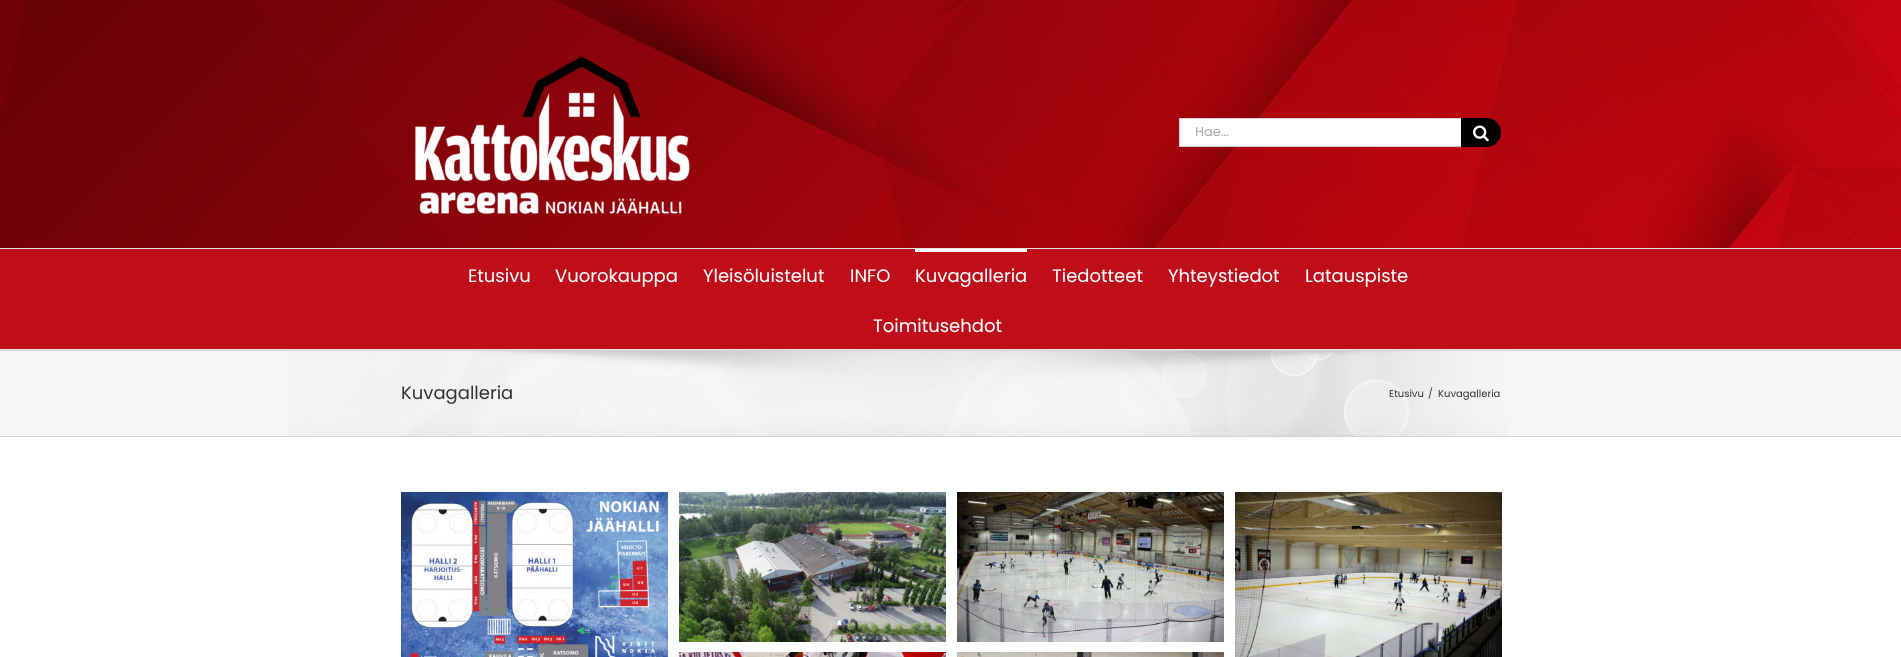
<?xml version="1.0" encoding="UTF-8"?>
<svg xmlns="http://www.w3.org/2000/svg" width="1901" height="657">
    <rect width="100%" height="100%" fill="#FFFFFF"/>
    <image x="0" y="0" width="1901" height="248" href="img_01.png"/>
    <rect x="0" y="248" width="1901" height="1" fill="#E5E5E5"/>
    <image x="415" y="56" width="275" height="158" href="img_02.png"/>
    <rect x="1180" y="119" width="281" height="27" fill="#FFFFFF"/>
    <rect x="1179" y="118" width="282" height="1" fill="#D2D2D2"/>
    <rect x="1179" y="146" width="282" height="1" fill="#D2D2D2"/>
    <rect x="1179" y="118" width="1" height="29" fill="#D2D2D2"/>
    <text x="1195" y="136" font-family="Poppins" font-size="13" fill="#AAA9A9">Hae...</text>
    <path d="M 1461 118 H 1486.5 C 1494.5 118 1501 124.5 1501 132.5 C 1501 140.5 1494.5 147 1486.5 147 H 1461 Z" fill="#000000"/>
    <image x="1473" y="125" width="16" height="17" href="img_03.png"/>
    <rect x="0" y="249" width="1901" height="100" fill="#BF0E1A"/>
    <rect x="0" y="349" width="1901" height="1" fill="#E5E5E5"/>
    <text x="468" y="282" font-family="Poppins" font-size="18" fill="#FFFFFF">Etusivu</text>
    <text x="555" y="282" font-family="Poppins" font-size="18" fill="#FFFFFF">Vuorokauppa</text>
    <text x="703" y="282" font-family="Poppins" font-size="18" fill="#FFFFFF">Yleisöluistelut</text>
    <text x="850" y="282" font-family="Poppins" font-size="18" fill="#FFFFFF">INFO</text>
    <rect x="915" y="249" width="112" height="3" fill="#FFFFFF"/>
    <text x="915" y="282" font-family="Poppins" font-size="18" fill="#FFFFFF">Kuvagalleria</text>
    <text x="1052" y="282" font-family="Poppins" font-size="18" fill="#FFFFFF">Tiedotteet</text>
    <text x="1168" y="282" font-family="Poppins" font-size="18" fill="#FFFFFF">Yhteystiedot</text>
    <text x="1305" y="282" font-family="Poppins" font-size="18" fill="#FFFFFF">Latauspiste</text>
    <text x="873" y="332" font-family="Poppins" font-size="18" fill="#FFFFFF">Toimitusehdot</text>
    <rect x="0" y="351" width="1901" height="85" fill="#F6F6F6"/>
    <image x="287" y="351" width="1222" height="85" href="img_04.png"/>
    <rect x="0" y="350" width="1901" height="1" fill="#D2D3D4"/>
    <rect x="0" y="436" width="1901" height="1" fill="#D2D3D4"/>
    <text x="401" y="399" font-family="Poppins" font-size="18" fill="#333333">Kuvagalleria</text>
    <text x="1389" y="397" font-family="Poppins" font-size="10" fill="#333333">Etusivu</text>
    <text x="1428" y="397" font-family="Poppins" font-size="10" fill="#333333">/</text>
    <text x="1438" y="397" font-family="Poppins" font-size="10" fill="#333333">Kuvagalleria</text>
    <image x="401" y="492" width="267" height="165" href="img_05.png"/>
    <image x="679" y="492" width="267" height="150" href="img_06.png"/>
    <image x="957" y="492" width="267" height="150" href="img_07.png"/>
    <image x="1235" y="492" width="267" height="165" href="img_08.png"/>
    <image x="679" y="652" width="267" height="5" href="img_09.png"/>
    <image x="957" y="652" width="267" height="5" href="img_10.png"/>
</svg>
